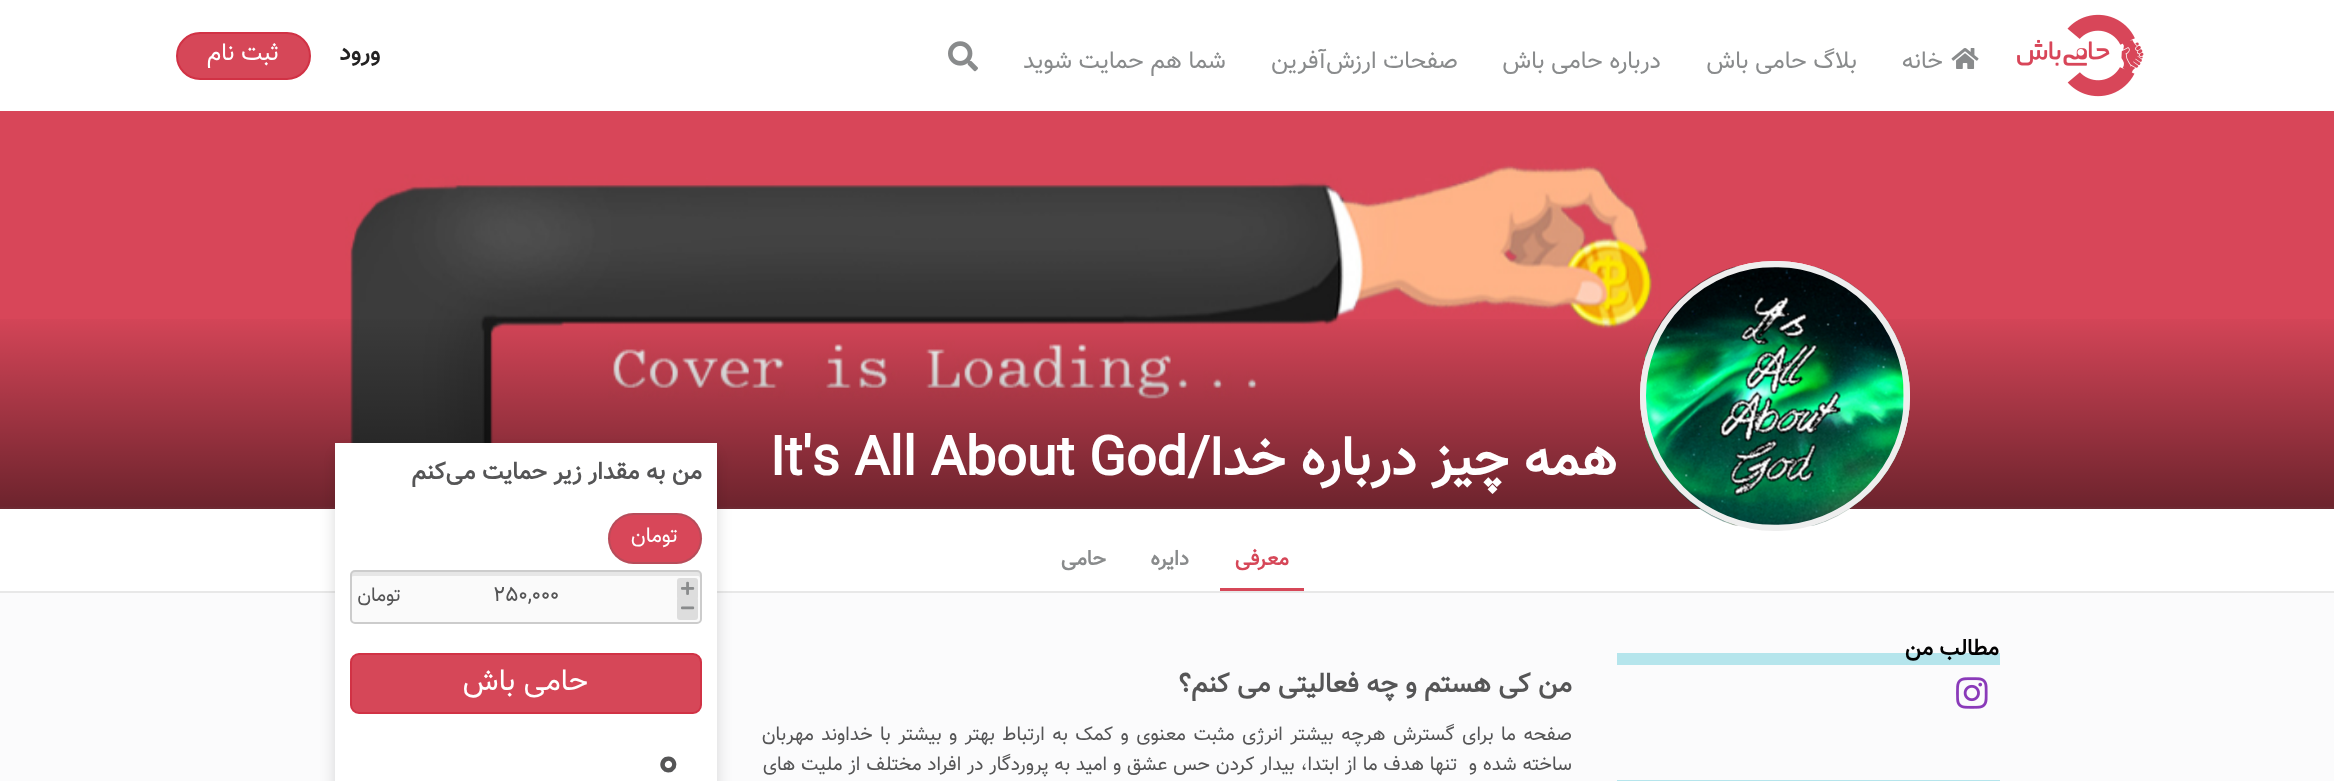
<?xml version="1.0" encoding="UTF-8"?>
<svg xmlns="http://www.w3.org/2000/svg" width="2334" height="781">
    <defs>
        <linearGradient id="g1" gradientUnits="userSpaceOnUse" x1="1167" y1="111" x2="1167" y2="509"><stop offset="0.5" stop-color="#000000" stop-opacity="0"/><stop offset="1" stop-color="#000000" stop-opacity="0.5"/></linearGradient>
        <clipPath id="clip1"><path d="M 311 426 H 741 V 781 H 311 Z M 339 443 H 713 C 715 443 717 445 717 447 V 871 C 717 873 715 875 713 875 H 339 C 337 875 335 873 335 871 V 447 C 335 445 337 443 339 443 Z" clip-rule="evenodd"/></clipPath>
        <filter id="blur1" x="-50%" y="-200%" width="200%" height="500%"><feGaussianBlur stdDeviation="7.5"/></filter>
    </defs>
    <rect width="100%" height="100%" fill="#FFFFFF"/>
    <image x="2017" y="14" width="127" height="83" href="img_01.png"/>
    <image x="1951" y="48" width="28" height="21" href="img_02.png"/>
    <text x="1943" y="68" font-family="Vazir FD" font-size="24" direction="rtl" fill="#898B8C">خانه</text>
    <text x="1857" y="68" font-family="Vazir FD" font-size="24" direction="rtl" fill="#898B8C">بلاگ حامی باش</text>
    <text x="1661" y="68" font-family="Vazir FD" font-size="24" direction="rtl" fill="#898B8C">درباره حامی باش</text>
    <text x="1458" y="68" font-family="Vazir FD" font-size="24" direction="rtl" fill="#898B8C">صفحات ارزش‌آفرین</text>
    <text x="1226" y="68" font-family="Vazir FD" font-size="24" direction="rtl" fill="#898B8C">شما هم حمایت شوید</text>
    <image x="948" y="41" width="30" height="31" href="img_03.png"/>
    <text x="380" y="60" font-family="Vazir FD" font-size="24" font-weight="700" direction="rtl" fill="#232222">ورود</text>
    <rect x="177" y="33" width="133" height="46" rx="23" fill="#D64758" stroke="#D13245" stroke-width="2"/>
    <text x="279" y="60" font-family="Vazir FD" font-size="24" direction="rtl" fill="#FFFFFF">ثبت نام</text>
    <rect x="0" y="506" width="2334" height="275" fill="#FBFBFC"/>
    <image x="0" y="111" width="2334" height="398" href="img_04.png"/>
    <rect x="0" y="319" width="2334" height="190" fill="url(#g1)"/>
    <rect x="0" y="509" width="2334" height="82" fill="#FFFFFF"/>
    <circle cx="1775" cy="396" r="135" fill="#FFFFFF"/>
    <image x="1645" y="266" width="259" height="260" href="img_05.png"/>
    <circle cx="1775" cy="396" r="132" fill="none" stroke="#EEEEEE" stroke-width="6"/>
    <text x="1617" y="475" font-family="Vazir FD" font-size="54" font-weight="700" direction="rtl" fill="#FFFFFF">همه چیز درباره خدا/</text>
    <text x="770" y="475" font-family="Vazir FD" font-size="54" font-weight="700" fill="#FFFFFF">It's All About God</text>
    <rect x="1617" y="653" width="383" height="12" fill="#B5E5EC"/>
    <text x="1999" y="655" font-family="Vazir FD" font-size="22.5" font-weight="700" direction="rtl" fill="#010101">مطالب من</text>
    <image x="1956" y="677" width="32" height="32" href="img_06.png"/>
    <rect x="1617" y="780" width="383" height="1" fill="#B5E5EC"/>
    <text x="1572" y="692" font-family="Vazir FD" font-size="27" font-weight="700" direction="rtl" fill="#555556">من کی هستم و چه فعاليتی می کنم؟</text>
    <text font-family="Vazir FD" font-size="19.5" direction="rtl" fill="#555556" xml:space="preserve"><tspan x="1572" y="740" word-spacing="2.1">صفحه ما برای گسترش هرچه بیشتر انرژی مثبت معنوی و کمک به ارتباط بهتر و بیشتر با خداوند مهربان</tspan><tspan x="1572" y="770" word-spacing="0.4">ساخته شده و  تنها هدف ما از ابتدا، بیدار کردن حس عشق و امید به پروردگار در افراد مختلف از ملیت های</tspan></text>
    <rect x="0" y="591" width="2334" height="2" fill="#E8E8E8"/>
    <rect x="335" y="443" width="382" height="338" fill="#FFFFFF"/>
    <g clip-path="url(#clip1)">
        <rect x="335" y="450" width="382" height="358" rx="4" fill="#000000" fill-opacity="0.15" filter="url(#blur1)"/>
    </g>
    <text x="702" y="479" font-family="Vazir FD" font-size="24" font-weight="700" direction="rtl" fill="#555556">من به مقدار زیر حمایت می‌کنم</text>
    <rect x="608" y="513" width="94" height="51" rx="25.5" fill="#D84759"/>
    <rect x="609" y="514" width="92" height="49" rx="24.5" fill="none" stroke="#5B5B5B" stroke-opacity="0.26" stroke-width="2"/>
    <text x="678" y="542" font-family="Vazir FD" font-size="21" direction="rtl" fill="#FFFFFF">تومان</text>
    <rect x="351" y="572" width="350" height="51" rx="3" fill="#FAFAFA"/>
    <path d="M 354 576 H 698 C 699 576 700 577 700 579 V 622 C 701 622 701 621 701 620 V 575 C 701 573 700 572 698 572 H 354 C 352 572 351 573 351 575 V 579 C 351 577 352 576 354 576 Z" fill="#E6E6E6"/>
    <rect x="351" y="571" width="350" height="52" rx="4" fill="none" stroke="#CCCCCC" stroke-width="2"/>
    <rect x="677" y="578" width="21" height="22" rx="3" fill="#DDDDDD"/>
    <image x="681" y="581" width="14" height="14" href="img_07.png"/>
    <text x="493" y="601" font-family="Vazir FD" font-size="21" fill="#555556">250,000</text>
    <rect x="677" y="597" width="21" height="23" rx="3" fill="#DDDDDD"/>
    <image x="681" y="606" width="14" height="4" href="img_08.png"/>
    <text x="401" y="601" font-family="Vazir FD" font-size="19.5" direction="rtl" fill="#555556">تومان</text>
    <rect x="351" y="654" width="350" height="59" rx="8" fill="#D64758" stroke="#D13245" stroke-width="2"/>
    <text x="588" y="690" font-family="Vazir FD" font-size="30" direction="rtl" fill="#FFFFFF">حامی باش</text>
    <text x="657" y="778" font-family="Vazir FD" font-size="52" fill="#555556">0</text>
    <rect x="1220" y="588" width="84" height="3" fill="#D64758"/>
    <text x="1289" y="565" font-family="Vazir FD" font-size="21" font-weight="700" direction="rtl" fill="#D64758">معرفی</text>
    <text x="1189" y="565" font-family="Vazir FD" font-size="21" font-weight="700" direction="rtl" fill="#898B8C">دایره</text>
    <text x="1106" y="565" font-family="Vazir FD" font-size="21" font-weight="700" direction="rtl" fill="#898B8C">حامی</text>
</svg>
